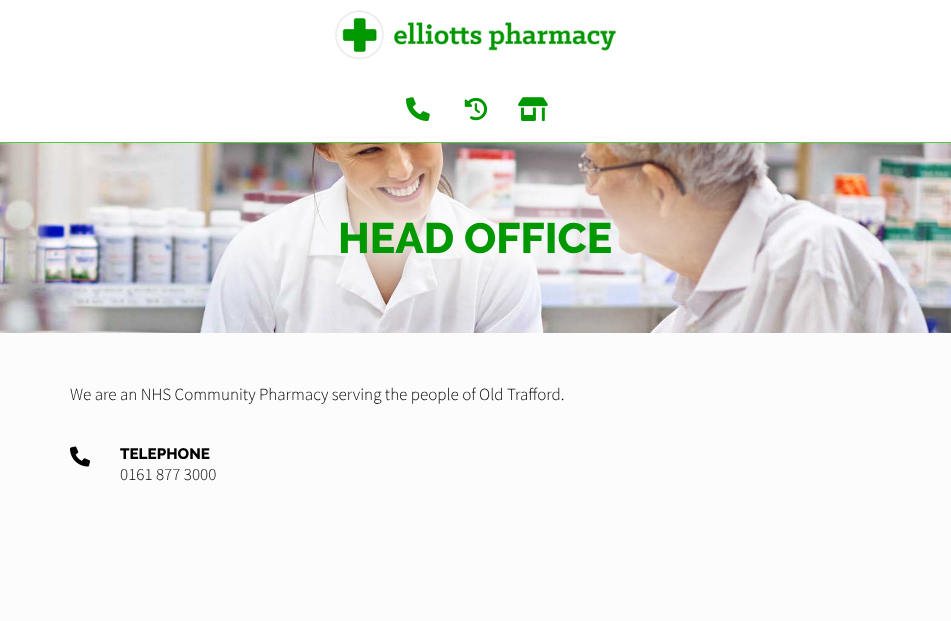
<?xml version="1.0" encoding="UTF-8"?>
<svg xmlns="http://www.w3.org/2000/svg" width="951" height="621">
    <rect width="100%" height="100%" fill="#FCFCFC"/>
    <rect x="0" y="0" width="951" height="142" fill="#FFFFFF"/>
    <rect x="0" y="142" width="951" height="1" fill="#53CA40"/>
    <image x="335" y="10" width="282" height="50" href="img_01.png"/>
    <image x="406" y="97" width="24" height="24" href="img_02.png"/>
    <image x="464" y="97" width="24" height="24" href="img_03.png"/>
    <image x="518" y="97" width="30" height="24" href="img_04.png"/>
    <image x="0" y="143" width="951" height="190" href="img_05.png"/>
    <text x="338" y="253" font-family="Raleway" font-size="42.5" font-weight="800" fill="#009800">HEAD OFFICE</text>
    <text x="70" y="400" font-family="Source Sans Pro" font-size="17" font-weight="300" fill="#000000">We are an NHS Community Pharmacy serving the people of Old Trafford.</text>
    <image x="70" y="446" width="20" height="21" href="img_06.png"/>
    <text x="120" y="459" font-family="Raleway" font-size="15.25" font-weight="800" fill="#000000">TELEPHONE</text>
    <text x="120" y="480" font-family="Source Sans Pro" font-size="17" font-weight="300" fill="#000000">0161 877 3000</text>
</svg>
